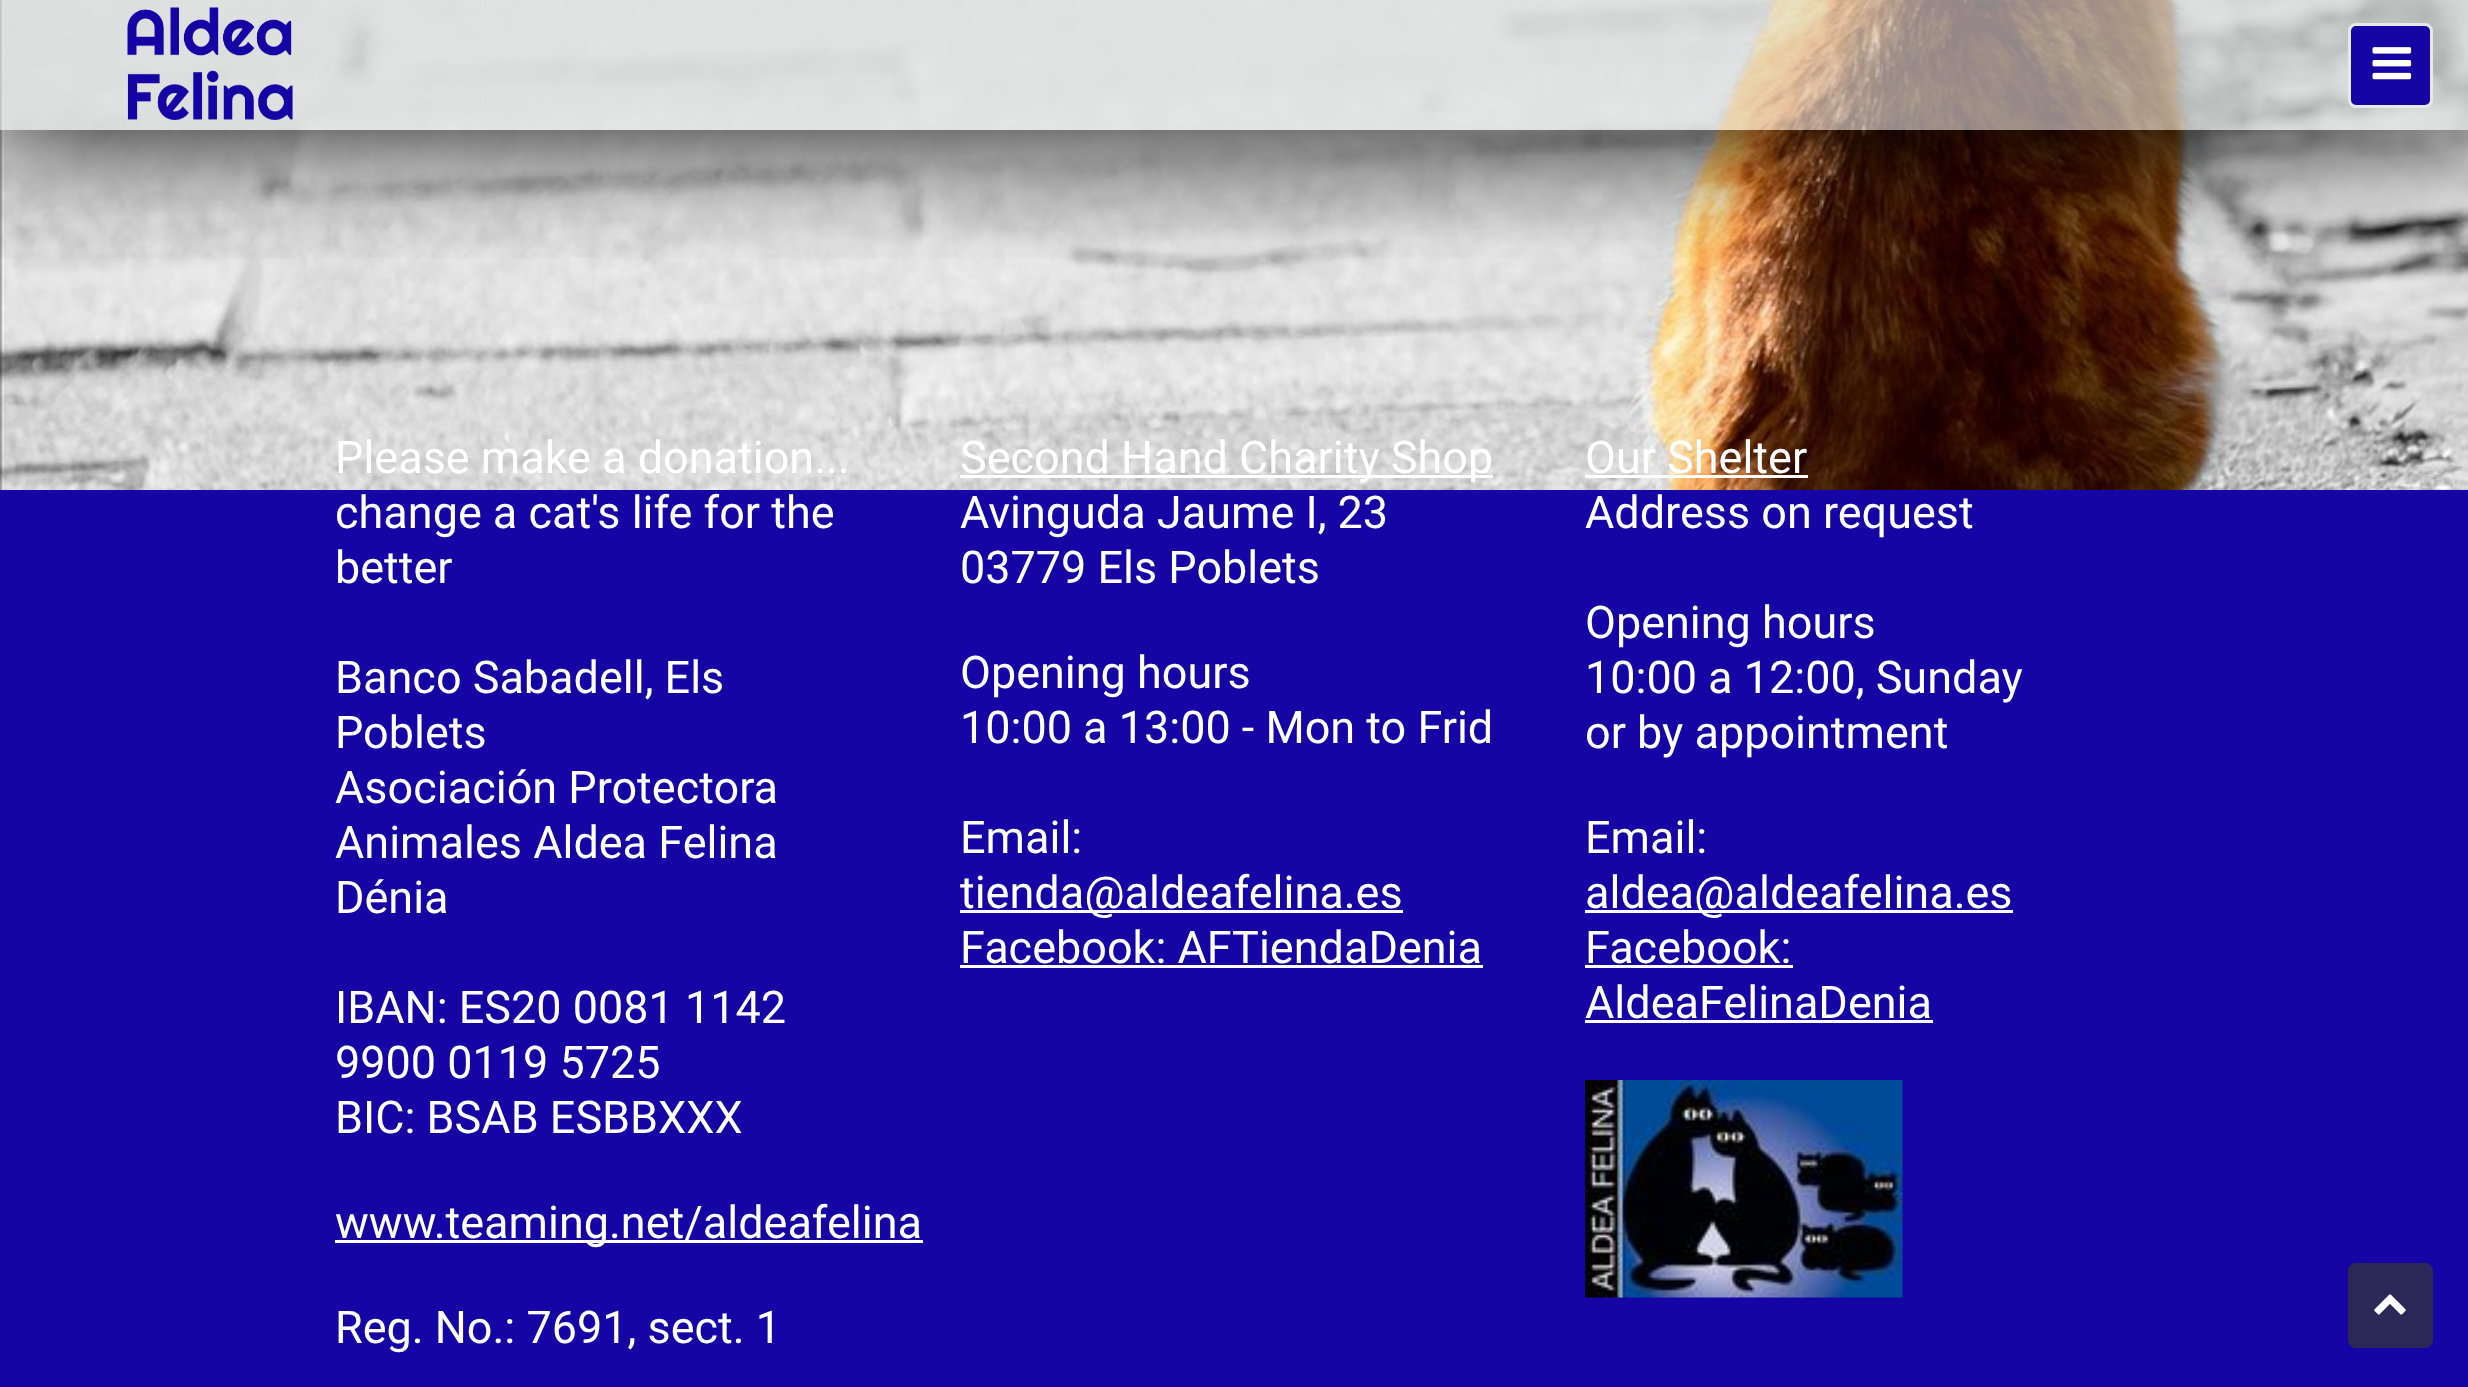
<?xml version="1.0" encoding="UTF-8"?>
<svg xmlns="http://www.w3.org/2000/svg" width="2468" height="1387">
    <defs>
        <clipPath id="clip1"><rect x="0" y="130" width="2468" height="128"/></clipPath>
        <filter id="blur1" x="-50%" y="-200%" width="200%" height="500%"><feGaussianBlur stdDeviation="62.5"/></filter>
    </defs>
    <rect width="100%" height="100%" fill="#1505A5"/>
    <image x="0" y="0" width="2468" height="490" href="img_01.png"/>
    <g clip-path="url(#clip1)">
        <rect x="0" y="0" width="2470" height="130" fill="#000000" filter="url(#blur1)"/>
    </g>
    <rect x="0" y="0" width="2468" height="130" fill="#DDE1E1" fill-opacity="0.6"/>
    <image x="127" y="7" width="166" height="113" href="img_02.png"/>
    <rect x="2349.5" y="24.5" width="82" height="82" rx="6.5" fill="#1505A5" stroke="#E8E8E8" stroke-width="3"/>
    <image x="2372" y="47" width="40" height="33" href="img_03.png"/>
    <text font-family="Roboto" font-size="45" fill="#FFFFFF">
        <tspan x="335" y="473">Please make a donation...</tspan>
        <tspan x="335" y="528">change a cat's life for the</tspan>
        <tspan x="335" y="583">better</tspan>
    </text>
    <text font-family="Roboto" font-size="45" fill="#FFFFFF">
        <tspan x="335" y="693">Banco Sabadell, Els</tspan>
        <tspan x="335" y="748">Poblets</tspan>
        <tspan x="335" y="803">Asociación Protectora</tspan>
        <tspan x="335" y="858">Animales Aldea Felina</tspan>
        <tspan x="335" y="913">Dénia</tspan>
    </text>
    <text font-family="Roboto" font-size="45" fill="#FFFFFF">
        <tspan x="335" y="1023">IBAN: ES20 0081 1142</tspan>
        <tspan x="335" y="1078">9900 0119 5725</tspan>
        <tspan x="335" y="1133">BIC: BSAB ESBBXXX</tspan>
    </text>
    <rect x="335" y="1240" width="588" height="3" fill="#FFFFFF"/>
    <text x="335" y="1238" font-family="Roboto" font-size="45" fill="#FFFFFF">www.teaming.net/aldeafelina</text>
    <text x="335" y="1343" font-family="Roboto" font-size="45" fill="#FFFFFF">Reg. No.: 7691, sect. 1</text>
    <rect x="960" y="475" width="533" height="3" fill="#FFFFFF"/>
    <text font-family="Roboto" font-size="45" fill="#FFFFFF">
        <tspan x="960" y="473">Second Hand Charity Shop</tspan>
        <tspan x="960" y="528">Avinguda Jaume I, 23</tspan>
        <tspan x="960" y="583">03779 Els Poblets</tspan>
    </text>
    <text font-family="Roboto" font-size="45" fill="#FFFFFF">
        <tspan x="960" y="688">Opening hours</tspan>
        <tspan x="960" y="743">10:00 a 13:00 - Mon to Frid</tspan>
    </text>
    <text x="960" y="853" font-family="Roboto" font-size="45" fill="#FFFFFF">Email:</text>
    <rect x="960" y="910" width="443" height="3" fill="#FFFFFF"/>
    <text font-family="Roboto" font-size="45" fill="#FFFFFF">
        <tspan x="960" y="908">tienda@aldeafelina.es</tspan>
        <tspan x="960" y="963">Facebook: AFTiendaDenia</tspan>
    </text>
    <rect x="960" y="965" width="523" height="3" fill="#FFFFFF"/>
    <text x="1585" y="473" font-family="Roboto" font-size="45" fill="#FFFFFF">Our Shelter</text>
    <rect x="1585" y="475" width="223" height="3" fill="#FFFFFF"/>
    <text x="1585" y="528" font-family="Roboto" font-size="45" fill="#FFFFFF">Address on request</text>
    <text font-family="Roboto" font-size="45" fill="#FFFFFF">
        <tspan x="1585" y="638">Opening hours</tspan>
        <tspan x="1585" y="693">10:00 a 12:00, Sunday</tspan>
        <tspan x="1585" y="748">or by appointment</tspan>
    </text>
    <text x="1585" y="853" font-family="Roboto" font-size="45" fill="#FFFFFF">Email:</text>
    <rect x="1585" y="910" width="428" height="3" fill="#FFFFFF"/>
    <text font-family="Roboto" font-size="45" fill="#FFFFFF">
        <tspan x="1585" y="908">aldea@aldeafelina.es</tspan>
        <tspan x="1585" y="963">Facebook:</tspan>
    </text>
    <rect x="1585" y="965" width="208" height="3" fill="#FFFFFF"/>
    <text x="1585" y="1018" font-family="Roboto" font-size="45" fill="#FFFFFF">AldeaFelinaDenia</text>
    <rect x="1585" y="1020" width="348" height="3" fill="#FFFFFF"/>
    <image x="1585" y="1080" width="318" height="218" href="img_04.png"/>
    <rect x="2348" y="1263" width="85" height="85" rx="8" fill="#2B2757"/>
    <image x="2374" y="1294" width="32" height="21" href="img_05.png"/>
</svg>
